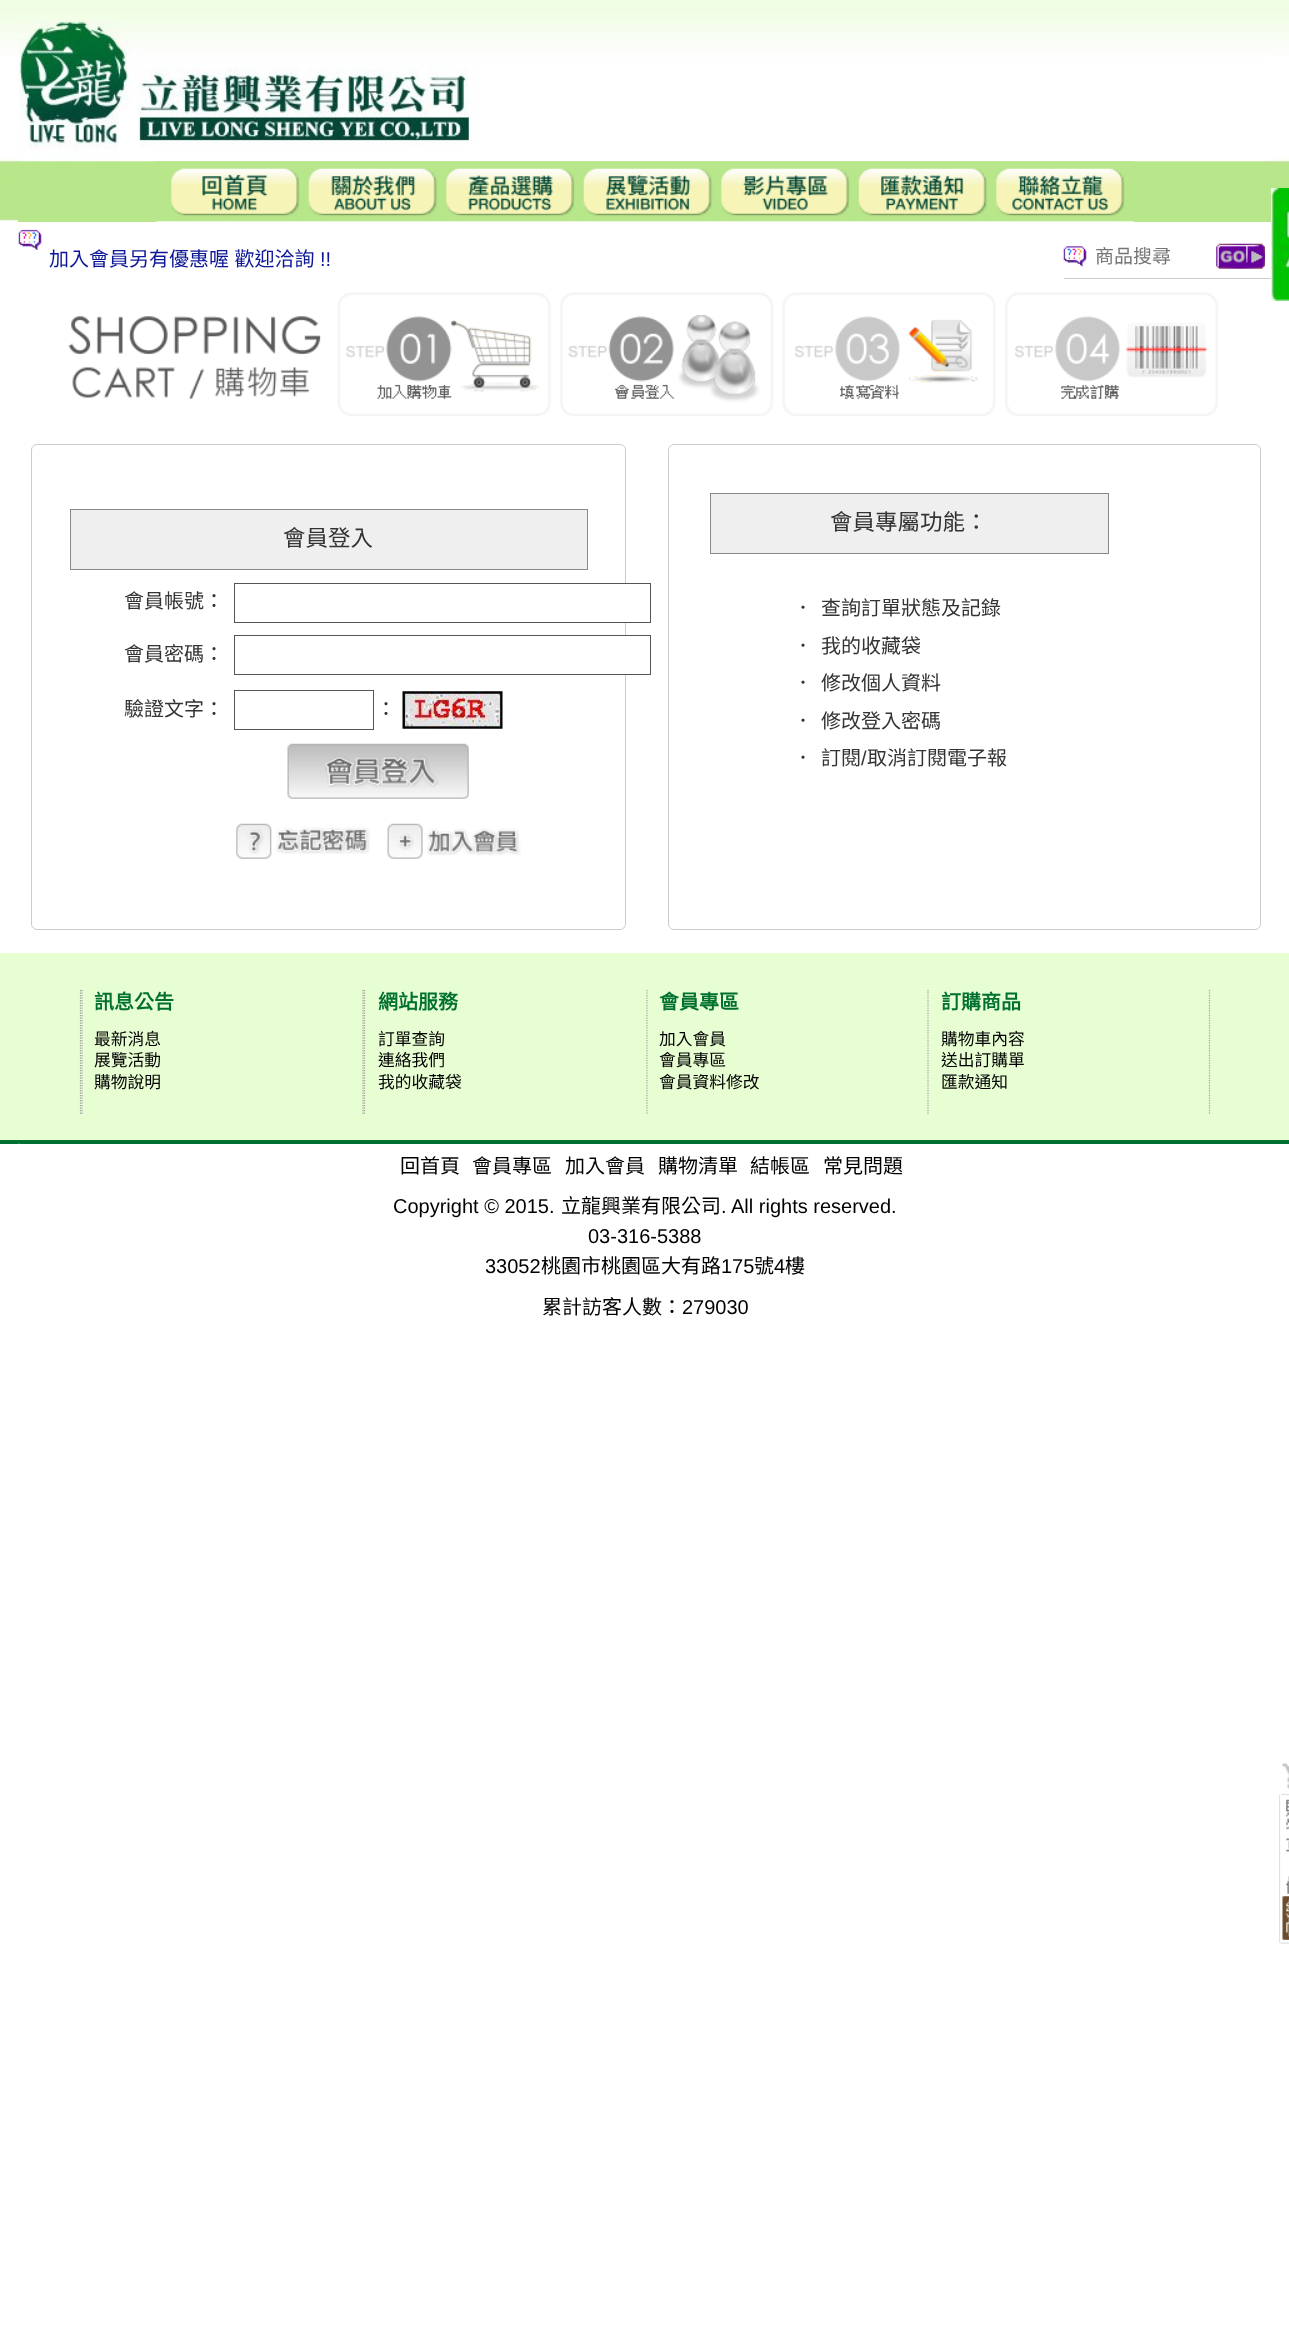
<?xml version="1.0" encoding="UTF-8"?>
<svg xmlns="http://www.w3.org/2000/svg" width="1289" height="2331">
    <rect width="100%" height="100%" fill="#FFFFFF"/>
    <image x="0" y="0" width="1289" height="222" href="img_01.png"/>
    <rect x="18" y="161" width="1254" height="61" fill="#B8E68B"/>
    <image x="18" y="20" width="1254" height="142" href="img_02.png"/>
    <image x="156" y="161" width="148" height="61" href="img_03.png"/>
    <image x="303" y="161" width="139" height="61" href="img_04.png"/>
    <image x="441" y="161" width="138" height="61" href="img_05.png"/>
    <image x="578" y="161" width="139" height="61" href="img_06.png"/>
    <image x="716" y="161" width="138" height="61" href="img_07.png"/>
    <image x="853" y="161" width="139" height="61" href="img_08.png"/>
    <image x="991" y="161" width="143" height="61" href="img_09.png"/>
    <image x="18" y="229" width="24" height="21" href="img_10.png"/>
    <text x="49" y="266" word-spacing="1" font-family="Noto Sans CJK TC" font-size="20" fill="#0D1796">加入會員另有優惠喔 歡迎洽詢</text>
    <text x="320" y="266" font-family="Liberation Sans" font-size="20" fill="#0D1796">!!</text>
    <rect x="1064" y="278" width="207" height="1" fill="#CCCCCC"/>
    <image x="1063" y="246" width="24" height="21" href="img_11.png"/>
    <text x="1095" y="263" font-family="Noto Sans CJK TC" font-size="19" fill="#757575">商品搜尋</text>
    <image x="1216" y="243" width="49" height="26" href="img_12.png"/>
    <image x="68" y="292" width="1151" height="124" href="img_13.png"/>
    <rect x="31.5" y="444.5" width="594" height="485" rx="5.5" fill="none" stroke="#CCCCCC"/>
    <rect x="70.5" y="509.5" width="517" height="60" fill="#EFEFEF" stroke="#888888"/>
    <text x="283" y="546" font-family="Noto Sans CJK TC" font-size="22.5" fill="#333333">會員登入</text>
    <text x="124" y="608" font-family="Noto Sans CJK TC" font-size="20" fill="#333333">會員帳號：</text>
    <rect x="625" y="584" width="1" height="38" fill="#FFFFFF"/>
    <rect x="234.5" y="583.5" width="416" height="39" fill="none" stroke="#555555"/>
    <text x="124" y="661" font-family="Noto Sans CJK TC" font-size="20" fill="#333333">會員密碼：</text>
    <rect x="625" y="636" width="1" height="38" fill="#FFFFFF"/>
    <rect x="234.5" y="635.5" width="416" height="39" fill="none" stroke="#555555"/>
    <text x="124" y="716" font-family="Noto Sans CJK TC" font-size="20" fill="#333333">驗證文字：</text>
    <rect x="234.5" y="690.5" width="139" height="39" fill="none" stroke="#555555"/>
    <text x="376" y="716" font-family="Noto Sans CJK TC" font-size="20" fill="#333333">：</text>
    <image x="402" y="691" width="101" height="38" href="img_14.png"/>
    <image x="287" y="743" width="182" height="56" href="img_15.png"/>
    <image x="236" y="823" width="134" height="36" href="img_16.png"/>
    <image x="387" y="823" width="134" height="36" href="img_17.png"/>
    <rect x="668.5" y="444.5" width="592" height="485" rx="5.5" fill="none" stroke="#CCCCCC"/>
    <rect x="710.5" y="493.5" width="398" height="60" fill="#EFEFEF" stroke="#888888"/>
    <text x="830" y="530" font-family="Noto Sans CJK TC" font-size="22.5" fill="#333333">會員專屬功能：</text>
    <text x="793" y="615" font-family="Noto Sans CJK TC" font-size="20" fill="#333333">．</text>
    <text x="821" y="615" font-family="Noto Sans CJK TC" font-size="20" fill="#333333">查詢訂單狀態及記錄</text>
    <text x="793" y="653" font-family="Noto Sans CJK TC" font-size="20" fill="#333333">．</text>
    <text x="821" y="653" font-family="Noto Sans CJK TC" font-size="20" fill="#333333">我的收藏袋</text>
    <text x="793" y="690" font-family="Noto Sans CJK TC" font-size="20" fill="#333333">．</text>
    <text x="821" y="690" font-family="Noto Sans CJK TC" font-size="20" fill="#333333">修改個人資料</text>
    <text x="793" y="728" font-family="Noto Sans CJK TC" font-size="20" fill="#333333">．</text>
    <text x="821" y="728" font-family="Noto Sans CJK TC" font-size="20" fill="#333333">修改登入密碼</text>
    <text x="793" y="765" font-family="Noto Sans CJK TC" font-size="20" fill="#333333">．</text>
    <text x="821" y="765" font-family="Noto Sans CJK TC" font-size="20" fill="#333333">訂閱</text>
    <text x="861" y="765" font-family="Liberation Sans" font-size="20" fill="#333333">/</text>
    <text x="867" y="765" font-family="Noto Sans CJK TC" font-size="20" fill="#333333">取消訂閱電子報</text>
    <rect x="0" y="953" width="1289" height="187" fill="#E7FED2"/>
    <path d="M 82 990 V 1115" fill="none" stroke="#A1A1A1" stroke-width="1.2" stroke-dasharray="1.25 1.25"/>
    <path d="M 80.5 990 V 1115" fill="none" stroke="#A1A1A1" stroke-width="1.2" stroke-dasharray="1.25 1.25"/>
    <text x="94" y="1009" font-family="Noto Sans CJK TC" font-size="20" font-weight="700" fill="#007030">訊息公告</text>
    <text font-family="Noto Sans CJK TC" font-size="16.75" fill="#000000">
        <tspan x="94" y="1045">最新消息</tspan>
        <tspan x="94" y="1066">展覽活動</tspan>
        <tspan x="94" y="1088">購物說明</tspan>
    </text>
    <path d="M 364.5 990 V 1115" fill="none" stroke="#A1A1A1" stroke-width="1.2" stroke-dasharray="1.25 1.25"/>
    <path d="M 363 990 V 1115" fill="none" stroke="#A1A1A1" stroke-width="1.2" stroke-dasharray="1.25 1.25"/>
    <text x="378" y="1009" font-family="Noto Sans CJK TC" font-size="20" font-weight="700" fill="#007030">網站服務</text>
    <text font-family="Noto Sans CJK TC" font-size="16.75" fill="#000000">
        <tspan x="378" y="1045">訂單查詢</tspan>
        <tspan x="378" y="1066">連絡我們</tspan>
        <tspan x="378" y="1088">我的收藏袋</tspan>
    </text>
    <path d="M 647 990 V 1115" fill="none" stroke="#A1A1A1" stroke-width="1.2" stroke-dasharray="1.25 1.25"/>
    <text x="659" y="1009" font-family="Noto Sans CJK TC" font-size="20" font-weight="700" fill="#007030">會員專區</text>
    <text font-family="Noto Sans CJK TC" font-size="16.75" fill="#000000">
        <tspan x="659" y="1045">加入會員</tspan>
        <tspan x="659" y="1066">會員專區</tspan>
        <tspan x="659" y="1088">會員資料修改</tspan>
    </text>
    <path d="M 928 990 V 1115" fill="none" stroke="#A1A1A1" stroke-width="1.2" stroke-dasharray="1.25 1.25"/>
    <text x="941" y="1009" font-family="Noto Sans CJK TC" font-size="20" font-weight="700" fill="#007030">訂購商品</text>
    <text font-family="Noto Sans CJK TC" font-size="16.75" fill="#000000">
        <tspan x="941" y="1045">購物車內容</tspan>
        <tspan x="941" y="1066">送出訂購單</tspan>
        <tspan x="941" y="1088">匯款通知</tspan>
    </text>
    <path d="M 1209.5 990 V 1115" fill="none" stroke="#A1A1A1" stroke-width="1.2" stroke-dasharray="1.25 1.25"/>
    <rect x="0" y="1140" width="1289" height="4" fill="#007030"/>
    <image x="1271" y="188" width="18" height="113" href="img_18.png"/>
    <image x="18" y="1143" width="2" height="1" href="img_19.png"/>
    <text x="400" y="1173" font-family="Noto Sans CJK TC" font-size="20" fill="#000000">回首頁</text>
    <text x="472" y="1173" font-family="Noto Sans CJK TC" font-size="20" fill="#000000">會員專區</text>
    <text x="565" y="1173" font-family="Noto Sans CJK TC" font-size="20" fill="#000000">加入會員</text>
    <text x="658" y="1173" font-family="Noto Sans CJK TC" font-size="20" fill="#000000">購物清單</text>
    <text x="750" y="1173" font-family="Noto Sans CJK TC" font-size="20" fill="#000000">結帳區</text>
    <text x="823" y="1173" font-family="Noto Sans CJK TC" font-size="20" fill="#000000">常見問題</text>
    <text x="393" y="1213" font-family="Liberation Sans" font-size="20" fill="#000000">Copyright © 2015.</text>
    <text x="561" y="1213" font-family="Noto Sans CJK TC" font-size="20" fill="#000000">立龍興業有限公司</text>
    <text x="721" y="1213" font-family="Liberation Sans" font-size="20" fill="#000000">. All rights reserved.</text>
    <text x="588" y="1243" font-family="Liberation Sans" font-size="20" fill="#000000">03-316-5388</text>
    <text x="485" y="1273" font-family="Liberation Sans" font-size="20" fill="#000000">33052</text>
    <text x="541" y="1273" font-family="Noto Sans CJK TC" font-size="20" fill="#000000">桃園市桃園區大有路</text>
    <text x="721" y="1273" font-family="Liberation Sans" font-size="20" fill="#000000">175</text>
    <text x="754" y="1273" font-family="Noto Sans CJK TC" font-size="20" fill="#000000">號</text>
    <text x="774" y="1273" font-family="Liberation Sans" font-size="20" fill="#000000">4</text>
    <text x="785" y="1273" font-family="Noto Sans CJK TC" font-size="20" fill="#000000">樓</text>
    <text x="542" y="1314" font-family="Noto Sans CJK TC" font-size="20" fill="#000000">累計訪客人數：</text>
    <text x="682" y="1314" font-family="Liberation Sans" font-size="20" fill="#000000">279030</text>
    <image x="1279" y="1793" width="10" height="151" href="img_20.png"/>
    <image x="1282" y="1763" width="7" height="31" href="img_21.png"/>
    <image x="1286" y="1799" width="3" height="54" href="img_22.png"/>
    <image x="1282" y="1896" width="7" height="44" href="img_23.png"/>
</svg>
